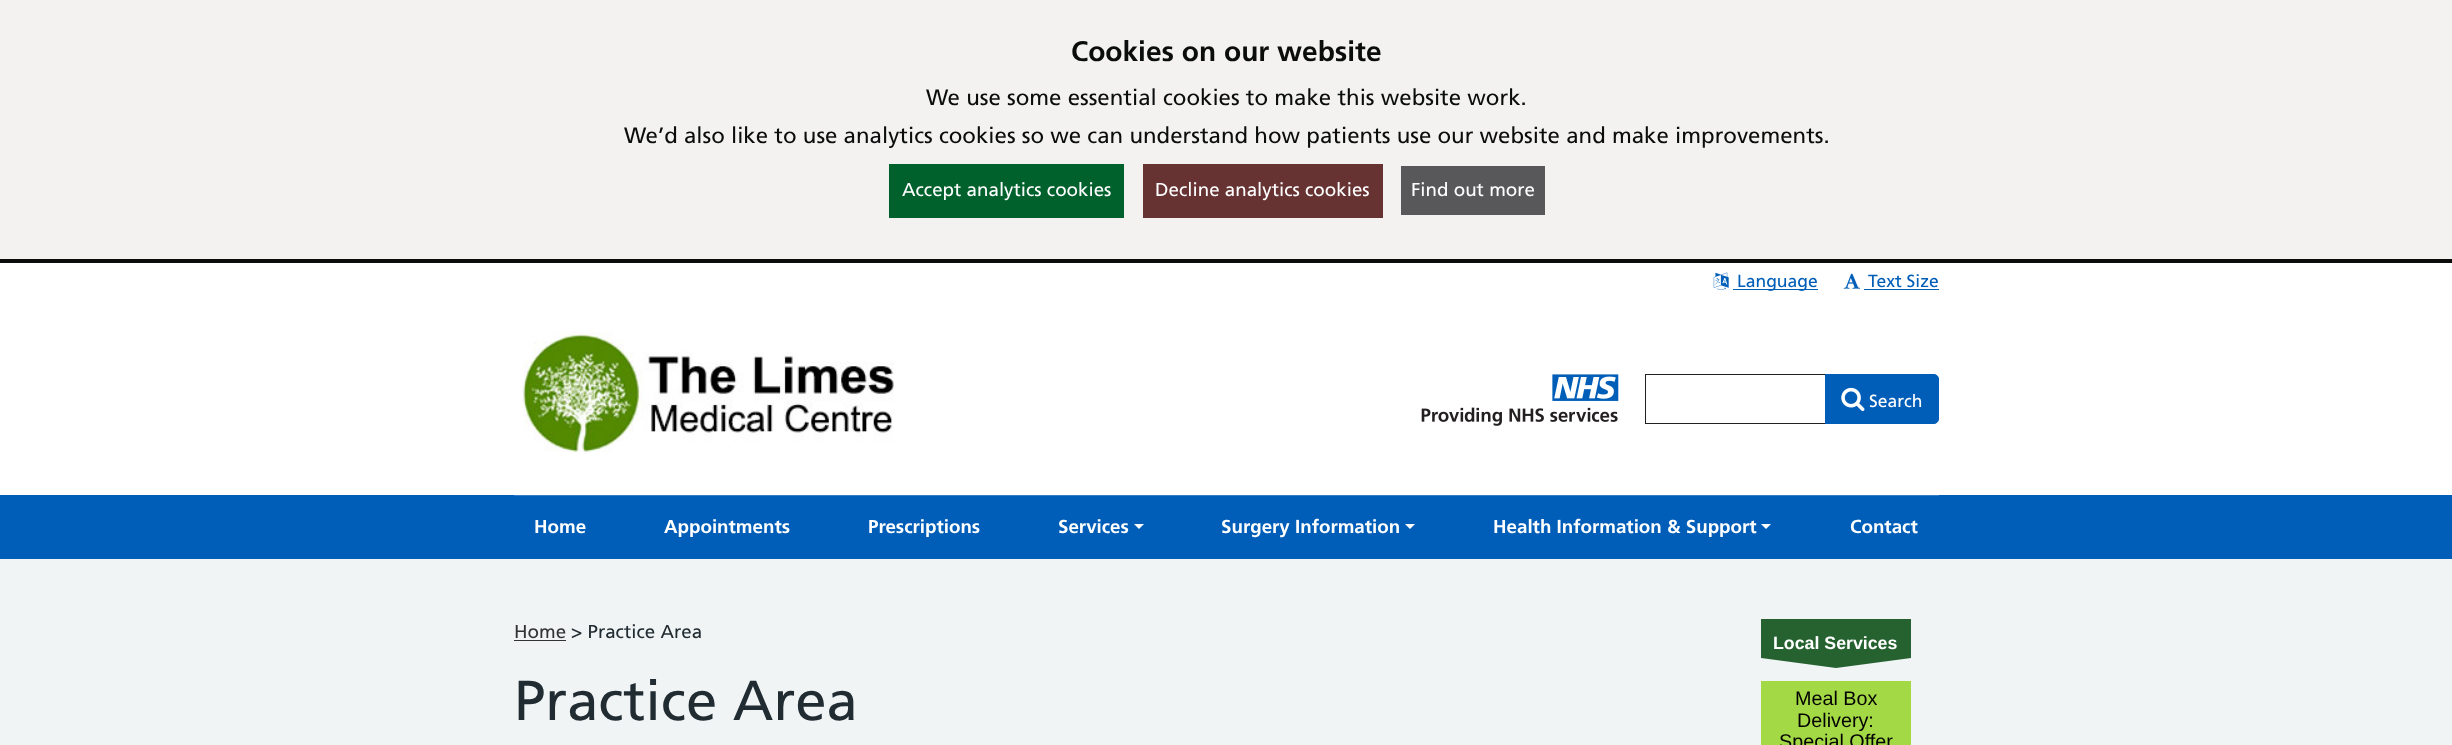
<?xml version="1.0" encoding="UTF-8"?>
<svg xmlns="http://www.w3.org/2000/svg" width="2452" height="745">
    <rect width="100%" height="100%" fill="#F0F4F5"/>
    <rect x="0" y="0" width="2452" height="259" fill="#F3F2F1"/>
    <rect x="0" y="259" width="2452" height="4" fill="#0B0C0C"/>
    <text x="1071" y="61" font-family="Frutiger" font-size="28.1" font-weight="700" fill="#0B0C0C">Cookies on our website</text>
    <text x="926" y="105" font-family="Frutiger" font-size="22.27" fill="#0B0C0C">We use some essential cookies to make this website work.</text>
    <text x="624" y="143" font-family="Frutiger" font-size="22.27" fill="#0B0C0C">We’d also like to use analytics cookies so we can understand how patients use our website and make improvements.</text>
    <rect x="889" y="164" width="235" height="54" fill="#00612D"/>
    <text x="902" y="196" font-family="Frutiger" font-size="18.75" fill="#FFFFFF">Accept analytics cookies</text>
    <rect x="1143" y="164" width="240" height="54" fill="#673232"/>
    <text x="1155" y="196" font-family="Frutiger" font-size="18.75" fill="#FFFFFF">Decline analytics cookies</text>
    <rect x="1401" y="166" width="144" height="49" fill="#58585A"/>
    <text x="1411" y="196" font-family="Frutiger" font-size="18.75" fill="#FFFFFF">Find out more</text>
    <rect x="0" y="263" width="2452" height="232" fill="#FFFFFF"/>
    <image x="1713" y="272" width="16" height="18" href="img_01.png"/>
    <rect x="1733" y="289" width="85" height="1" fill="#005EB8"/>
    <text x="1737" y="287" font-family="Frutiger" font-size="17.5" fill="#005EB8">Language</text>
    <image x="1843" y="273" width="17" height="16" href="img_02.png"/>
    <text x="1868" y="287" font-family="Frutiger" font-size="17.5" fill="#005EB8">Text Size</text>
    <rect x="1864" y="289" width="75" height="1" fill="#005EB8"/>
    <image x="522" y="331" width="372" height="122" href="img_03.png"/>
    <image x="1421" y="374" width="198" height="52" href="img_04.png"/>
    <rect x="1645.5" y="374.5" width="180" height="49" fill="none" stroke="#231F20"/>
    <path d="M 1825.5 374.5 H 1934 C 1936.5 374.5 1938.5 376.5 1938.5 379 V 419 C 1938.5 421.5 1936.5 423.5 1934 423.5 H 1825.5 Z" fill="#005EB8" stroke="#005EB8"/>
    <image x="1841" y="387" width="24" height="25" href="img_05.png"/>
    <text x="1869" y="407" font-family="Frutiger" font-size="17.5" fill="#FFFFFF">Search</text>
    <rect x="0" y="495" width="2452" height="64" fill="#005EB8"/>
    <rect x="514" y="495" width="1425" height="1" fill="#337EC6"/>
    <text x="534" y="533" font-family="Frutiger" font-size="18.75" font-weight="700" fill="#FFFFFF">Home</text>
    <text x="664" y="533" font-family="Frutiger" font-size="18.75" font-weight="700" fill="#FFFFFF">Appointments</text>
    <text x="868" y="533" font-family="Frutiger" font-size="18.75" font-weight="700" fill="#FFFFFF">Prescriptions</text>
    <text x="1058" y="533" font-family="Frutiger" font-size="18.75" font-weight="700" fill="#FFFFFF">Services</text>
    <path d="M 1134 524 H 1144 L 1139 529 Z" fill="#FFFFFF"/>
    <text x="1221" y="533" font-family="Frutiger" font-size="18.75" font-weight="700" fill="#FFFFFF">Surgery Information</text>
    <path d="M 1405 524 H 1415 L 1410 529 Z" fill="#FFFFFF"/>
    <text x="1493" y="533" font-family="Frutiger" font-size="18.75" font-weight="700" fill="#FFFFFF">Health Information &amp; Support</text>
    <path d="M 1761 524 H 1771 L 1766 529 Z" fill="#FFFFFF"/>
    <text x="1850" y="533" font-family="Frutiger" font-size="18.75" font-weight="700" fill="#FFFFFF">Contact</text>
    <text x="514" y="638" font-family="Frutiger" font-size="18.75" fill="#333333">Home</text>
    <rect x="514" y="640" width="52" height="1" fill="#333333"/>
    <text x="571" y="638" font-family="Frutiger" font-size="18.75" fill="#212B32">&gt; Practice Area</text>
    <text x="514" y="720" font-family="Frutiger" font-size="56.25" fill="#212B32">Practice Area</text>
    <path d="M 1761 619 H 1911 V 658 L 1836 668 L 1761 658 Z" fill="#256230"/>
    <text x="1773" y="649" font-family="Liberation Sans" font-size="17.75" font-weight="700" fill="#FFFFFF">Local Services</text>
    <rect x="1761" y="681" width="150" height="64" fill="#A4D946"/>
    <text x="1795" y="705" font-family="Liberation Sans" font-size="19.75" fill="#000000">Meal Box</text>
    <text x="1797" y="727" font-family="Liberation Sans" font-size="19.75" fill="#000000">Delivery:</text>
    <text x="1779" y="748" font-family="Liberation Sans" font-size="19.75" fill="#000000">Special Offer</text>
</svg>
